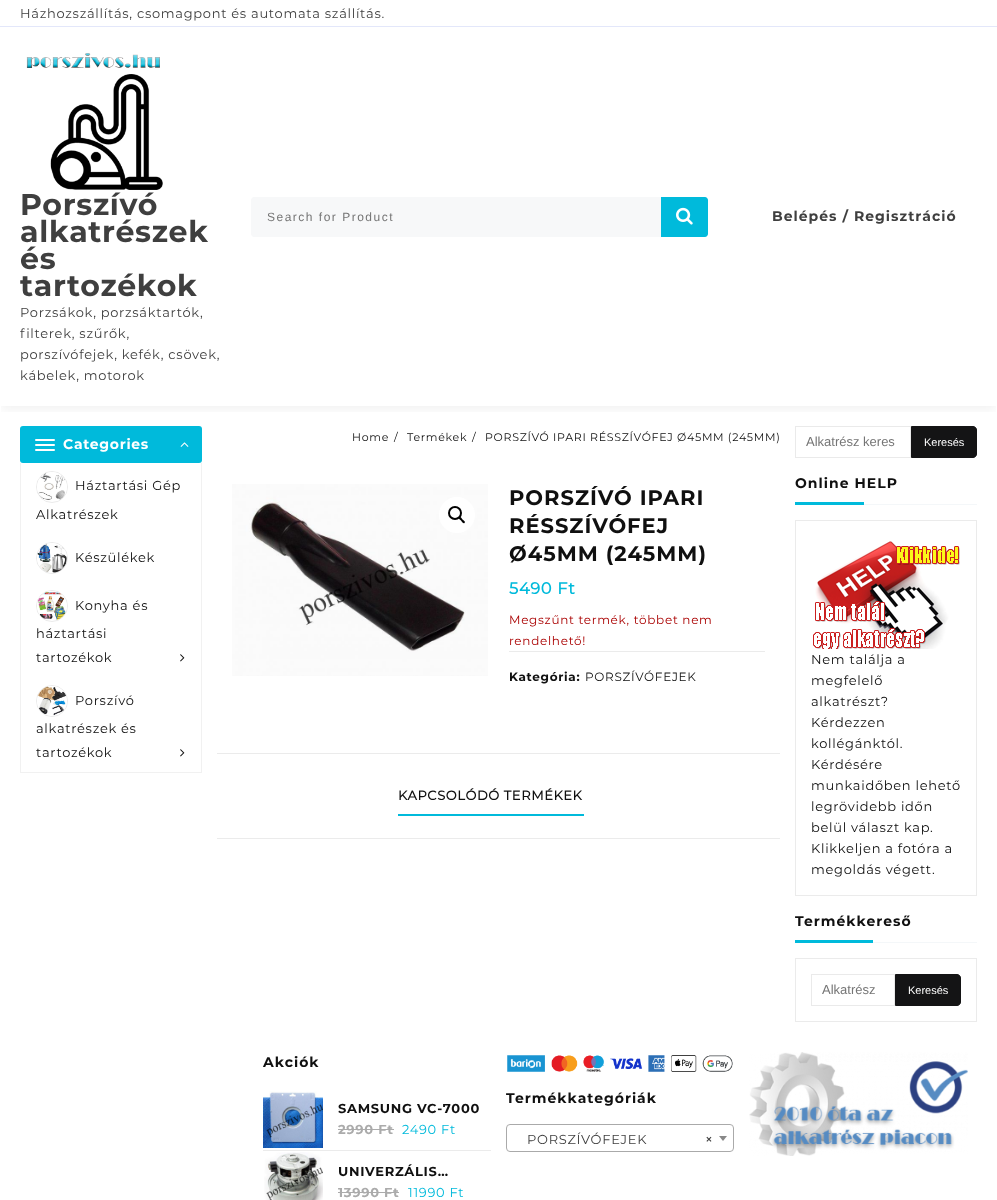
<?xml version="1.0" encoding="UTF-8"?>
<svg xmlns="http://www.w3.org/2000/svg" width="997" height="1200">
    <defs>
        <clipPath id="clip1"><rect x="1" y="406" width="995" height="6"/></clipPath>
        <filter id="blur1" x="-50%" y="-200%" width="200%" height="500%"><feGaussianBlur stdDeviation="6"/></filter>
    </defs>
    <rect width="100%" height="100%" fill="#FFFFFF"/>
    <g clip-path="url(#clip1)">
        <rect x="1" y="5" width="995" height="404" fill="#000000" fill-opacity="0.06" filter="url(#blur1)"/>
    </g>
    <rect x="0" y="26" width="997" height="1" fill="#E3E7FA"/>
    <text x="20" y="18" font-family="Montserrat" font-size="13" letter-spacing="0.7" fill="#3F3F3F">Házhozszállítás, csomagpont és automata szállítás.</text>
    <image x="26" y="53" width="137" height="137" href="img_01.png"/>
    <text font-family="Montserrat" font-size="30" font-weight="700" letter-spacing="0.7" fill="#3F3F3F">
        <tspan x="20" y="215">Porszívó</tspan>
        <tspan x="20" y="242">alkatrészek</tspan>
        <tspan x="20" y="269">és</tspan>
        <tspan x="20" y="296">tartozékok</tspan>
    </text>
    <text font-family="Montserrat" font-size="13" letter-spacing="0.7" fill="#3F3F3F">
        <tspan x="20" y="317">Porzsákok, porzsáktartók,</tspan>
        <tspan x="20" y="338">filterek, szűrők,</tspan>
        <tspan x="20" y="359">porszívófejek, kefék, csövek,</tspan>
        <tspan x="20" y="380">kábelek, motorok</tspan>
    </text>
    <path d="M 254 197 H 661 V 237 H 254 C 252.5 237 251 235.5 251 234 V 200 C 251 198.5 252.5 197 254 197 Z" fill="#F7F8F9"/>
    <text x="267" y="221" font-family="Liberation Sans" font-size="12" letter-spacing="1.5" fill="#757575">Search for Product</text>
    <path d="M 661 197 H 705 C 706.5 197 708 198.5 708 200 V 234 C 708 235.5 706.5 237 705 237 H 661 Z" fill="#00BADB"/>
    <image x="676" y="207" width="17" height="18" href="img_02.png"/>
    <text x="772" y="221" font-family="Montserrat" font-size="14" font-weight="700" letter-spacing="1" fill="#3F3F3F">Belépés / Regisztráció</text>
    <rect x="20" y="426" width="182" height="37" rx="3" fill="#00BADB"/>
    <rect x="35" y="439" width="20" height="2" rx="1" fill="#FFFFFF"/>
    <rect x="35" y="444" width="20" height="2" rx="1" fill="#FFFFFF"/>
    <rect x="35" y="449" width="20" height="2" rx="1" fill="#FFFFFF"/>
    <text x="63" y="449" font-family="Montserrat" font-size="14" font-weight="700" letter-spacing="0.7" fill="#FFFFFF">Categories</text>
    <image x="180" y="442" width="9" height="5" href="img_03.png"/>
    <rect x="201" y="463" width="1" height="310" fill="#F1F1F1"/>
    <rect x="20" y="772" width="182" height="1" fill="#F1F1F1"/>
    <rect x="20" y="463" width="1" height="310" fill="#F1F1F1"/>
    <circle cx="52" cy="487" r="15.5" fill="none" stroke="#EBEBEB"/>
    <image x="37" y="472" width="30" height="29" href="img_04.png"/>
    <text x="75" y="490" font-family="Montserrat" font-size="13" letter-spacing="0.7" fill="#101010">Háztartási Gép</text>
    <text x="36" y="519" font-family="Montserrat" font-size="13" letter-spacing="0.7" fill="#101010">Alkatrészek</text>
    <circle cx="52" cy="558" r="15.5" fill="none" stroke="#EBEBEB"/>
    <image x="37" y="543" width="30" height="30" href="img_05.png"/>
    <text x="75" y="562" font-family="Montserrat" font-size="13" letter-spacing="0.7" fill="#101010">Készülékek</text>
    <circle cx="52" cy="606" r="15.5" fill="none" stroke="#EBEBEB"/>
    <image x="37" y="591" width="30" height="29" href="img_06.png"/>
    <text x="75" y="610" font-family="Montserrat" font-size="13" letter-spacing="0.7" fill="#101010">Konyha és</text>
    <text font-family="Montserrat" font-size="13" letter-spacing="0.7" fill="#101010">
        <tspan x="36" y="638">háztartási</tspan>
        <tspan x="36" y="662">tartozékok</tspan>
    </text>
    <image x="180" y="654" width="5" height="8" href="img_07.png"/>
    <circle cx="52" cy="701" r="15.5" fill="none" stroke="#EBEBEB"/>
    <image x="37" y="686" width="30" height="30" href="img_08.png"/>
    <text x="75" y="705" font-family="Montserrat" font-size="13" letter-spacing="0.7" fill="#101010">Porszívó</text>
    <text font-family="Montserrat" font-size="13" letter-spacing="0.7" fill="#101010">
        <tspan x="36" y="733">alkatrészek és</tspan>
        <tspan x="36" y="757">tartozékok</tspan>
    </text>
    <image x="180" y="749" width="5" height="8" href="img_07.png"/>
    <text x="352" y="441" font-family="Montserrat" font-size="11" letter-spacing="0.7" fill="#101010">Home</text>
    <text x="394" y="441" font-family="Montserrat" font-size="11" letter-spacing="0.7" fill="#101010">/</text>
    <text x="407" y="441" font-family="Montserrat" font-size="11" letter-spacing="0.7" fill="#101010">Termékek</text>
    <text x="472" y="441" font-family="Montserrat" font-size="11" letter-spacing="0.7" fill="#101010">/</text>
    <text x="485" y="441" font-family="Montserrat" font-size="11" letter-spacing="0.7" fill="#101010">PORSZÍVÓ IPARI RÉSSZÍVÓFEJ Ø45MM (245MM)</text>
    <image x="232" y="484" width="256" height="192" href="img_09.png"/>
    <circle cx="457" cy="515" r="18" fill="#FFFFFF"/>
    <circle cx="455" cy="513" r="6" fill="none" stroke="#000000" stroke-width="2"/>
    <path d="M 459 517 C 460 516 462 518.5 462.5 519.5 C 463 520 466 521.5 464.5 523 C 463.5 524 461.5 521.5 461 520.5 C 460.5 520 458 518.5 459 517 Z" fill="#000000"/>
    <text font-family="Montserrat" font-size="21" font-weight="700" letter-spacing="1" fill="#101010">
        <tspan x="509" y="505">PORSZÍVÓ IPARI</tspan>
        <tspan x="509" y="533">RÉSSZÍVÓFEJ</tspan>
        <tspan x="509" y="561">Ø45MM (245MM)</tspan>
    </text>
    <text x="509" y="594" font-family="'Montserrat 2'" font-size="16.25" font-weight="700" letter-spacing="0.7" fill="#00BADB">5490 Ft</text>
    <text font-family="Montserrat" font-size="12" letter-spacing="0.7" fill="#AA0000">
        <tspan x="509" y="624">Megszűnt termék, többet nem</tspan>
        <tspan x="509" y="645">rendelhető!</tspan>
    </text>
    <rect x="509" y="651" width="256" height="1" fill="#EBEBEB"/>
    <text x="509" y="681" font-family="Montserrat" font-size="12" font-weight="700" letter-spacing="0.7" fill="#101010">Kategória:</text>
    <text x="585" y="681" font-family="Montserrat" font-size="12" letter-spacing="0.7" fill="#101010">PORSZÍVÓFEJEK</text>
    <rect x="217" y="753" width="563" height="1" fill="#EBEBEB"/>
    <rect x="217" y="838" width="563" height="1" fill="#EBEBEB"/>
    <text x="398" y="800" font-family="'Montserrat 2'" font-size="13" font-weight="700" letter-spacing="0.6" fill="#101010">KAPCSOLÓDÓ TERMÉKEK</text>
    <rect x="398" y="814" width="186" height="2" fill="#00BADB"/>
    <rect x="795.5" y="426.5" width="115" height="31" fill="none" stroke="#EAEAEA"/>
    <text x="806" y="446" font-family="Liberation Sans" font-size="13" fill="#757575">Alkatrész keres</text>
    <path d="M 911.5 426.5 H 973 C 975 426.5 976.5 428 976.5 430 V 454 C 976.5 456 975 457.5 973 457.5 H 911.5 Z" fill="#141415" stroke="#141415"/>
    <text x="924" y="446" font-family="Liberation Sans" font-size="11" fill="#FFFFFF">Keresés</text>
    <rect x="864" y="504" width="113" height="1" fill="#F4F7F9"/>
    <text x="795" y="488" font-family="Montserrat" font-size="14" font-weight="700" letter-spacing="1" fill="#101010">Online HELP</text>
    <rect x="795" y="502" width="69" height="3" fill="#00BADB"/>
    <rect x="795.5" y="520.5" width="181" height="375" fill="none" stroke="#EBEBEB"/>
    <image x="813" y="541" width="147" height="108" href="img_10.png"/>
    <text font-family="Montserrat" font-size="13" letter-spacing="0.7" fill="#101010">
        <tspan x="811" y="664">Nem találja a</tspan>
        <tspan x="811" y="685">megfelelő</tspan>
        <tspan x="811" y="706">alkatrészt?</tspan>
        <tspan x="811" y="727">Kérdezzen</tspan>
        <tspan x="811" y="748">kollégánktól.</tspan>
        <tspan x="811" y="769">Kérdésére</tspan>
        <tspan x="811" y="790">munkaidőben lehető</tspan>
        <tspan x="811" y="811">legrövidebb időn</tspan>
        <tspan x="811" y="832">belül választ kap.</tspan>
        <tspan x="811" y="853">Klikkeljen a fotóra a</tspan>
        <tspan x="811" y="874">megoldás végett.</tspan>
    </text>
    <rect x="873" y="942" width="104" height="1" fill="#F4F7F9"/>
    <text x="795" y="926" font-family="Montserrat" font-size="14" font-weight="700" letter-spacing="1" fill="#101010">Termékkereső</text>
    <rect x="795" y="940" width="78" height="3" fill="#00BADB"/>
    <rect x="795.5" y="958.5" width="181" height="63" fill="none" stroke="#EBEBEB"/>
    <rect x="811.5" y="974.5" width="83" height="31" fill="none" stroke="#EAEAEA"/>
    <text x="822" y="994" font-family="Liberation Sans" font-size="13" fill="#757575">Alkatrész</text>
    <path d="M 895.5 974.5 H 957 C 959 974.5 960.5 976 960.5 978 V 1002 C 960.5 1004 959 1005.5 957 1005.5 H 895.5 Z" fill="#141415" stroke="#141415"/>
    <text x="908" y="994" font-family="Liberation Sans" font-size="11" fill="#FFFFFF">Keresés</text>
    <text x="263" y="1067" font-family="Montserrat" font-size="14" font-weight="700" letter-spacing="1" fill="#101010">Akciók</text>
    <rect x="263" y="1150" width="228" height="1" fill="#EBEBEB"/>
    <image x="263" y="1091" width="60" height="57" href="img_11.png"/>
    <text x="338" y="1113" font-family="Montserrat" font-size="13" font-weight="700" letter-spacing="0.7" fill="#101010">SAMSUNG VC-7000</text>
    <text x="338" y="1134" font-family="Montserrat" font-size="13" font-weight="700" letter-spacing="0.7" fill="#ABABAB">2990 Ft</text>
    <rect x="338" y="1129" width="56" height="1" fill="#ABABAB"/>
    <text x="402" y="1134" font-family="Montserrat" font-size="13" letter-spacing="0.7" fill="#00BADB">2490 Ft</text>
    <image x="264" y="1152" width="59" height="48" href="img_12.png"/>
    <text x="338" y="1176" font-family="Montserrat" font-size="13" font-weight="700" letter-spacing="0.7" fill="#101010">UNIVERZÁLIS…</text>
    <text x="338" y="1197" font-family="Montserrat" font-size="13" font-weight="700" letter-spacing="0.7" fill="#ABABAB">13990 Ft</text>
    <rect x="338" y="1192" width="61" height="1" fill="#ABABAB"/>
    <text x="408" y="1197" font-family="Montserrat" font-size="13" letter-spacing="0.7" fill="#00BADB">11990 Ft</text>
    <image x="507" y="1055" width="226" height="17" href="img_13.png"/>
    <text x="506" y="1103" font-family="Montserrat" font-size="14" font-weight="700" letter-spacing="1" fill="#101010">Termékkategóriák</text>
    <rect x="506.5" y="1124.5" width="227" height="27" rx="3.5" fill="none" stroke="#AAAAAA"/>
    <text x="527" y="1144" font-family="Montserrat" font-size="13" letter-spacing="0.7" fill="#3F3F3F">PORSZÍVÓFEJEK</text>
    <text x="705" y="1144" font-family="'Montserrat 2'" font-size="13" font-weight="700" letter-spacing="0.7" fill="#3F3F3F">×</text>
    <path d="M 719 1136 H 727 L 723 1141 Z" fill="#888888"/>
    <image x="749" y="1052" width="219" height="104" href="img_14.png"/>
</svg>
